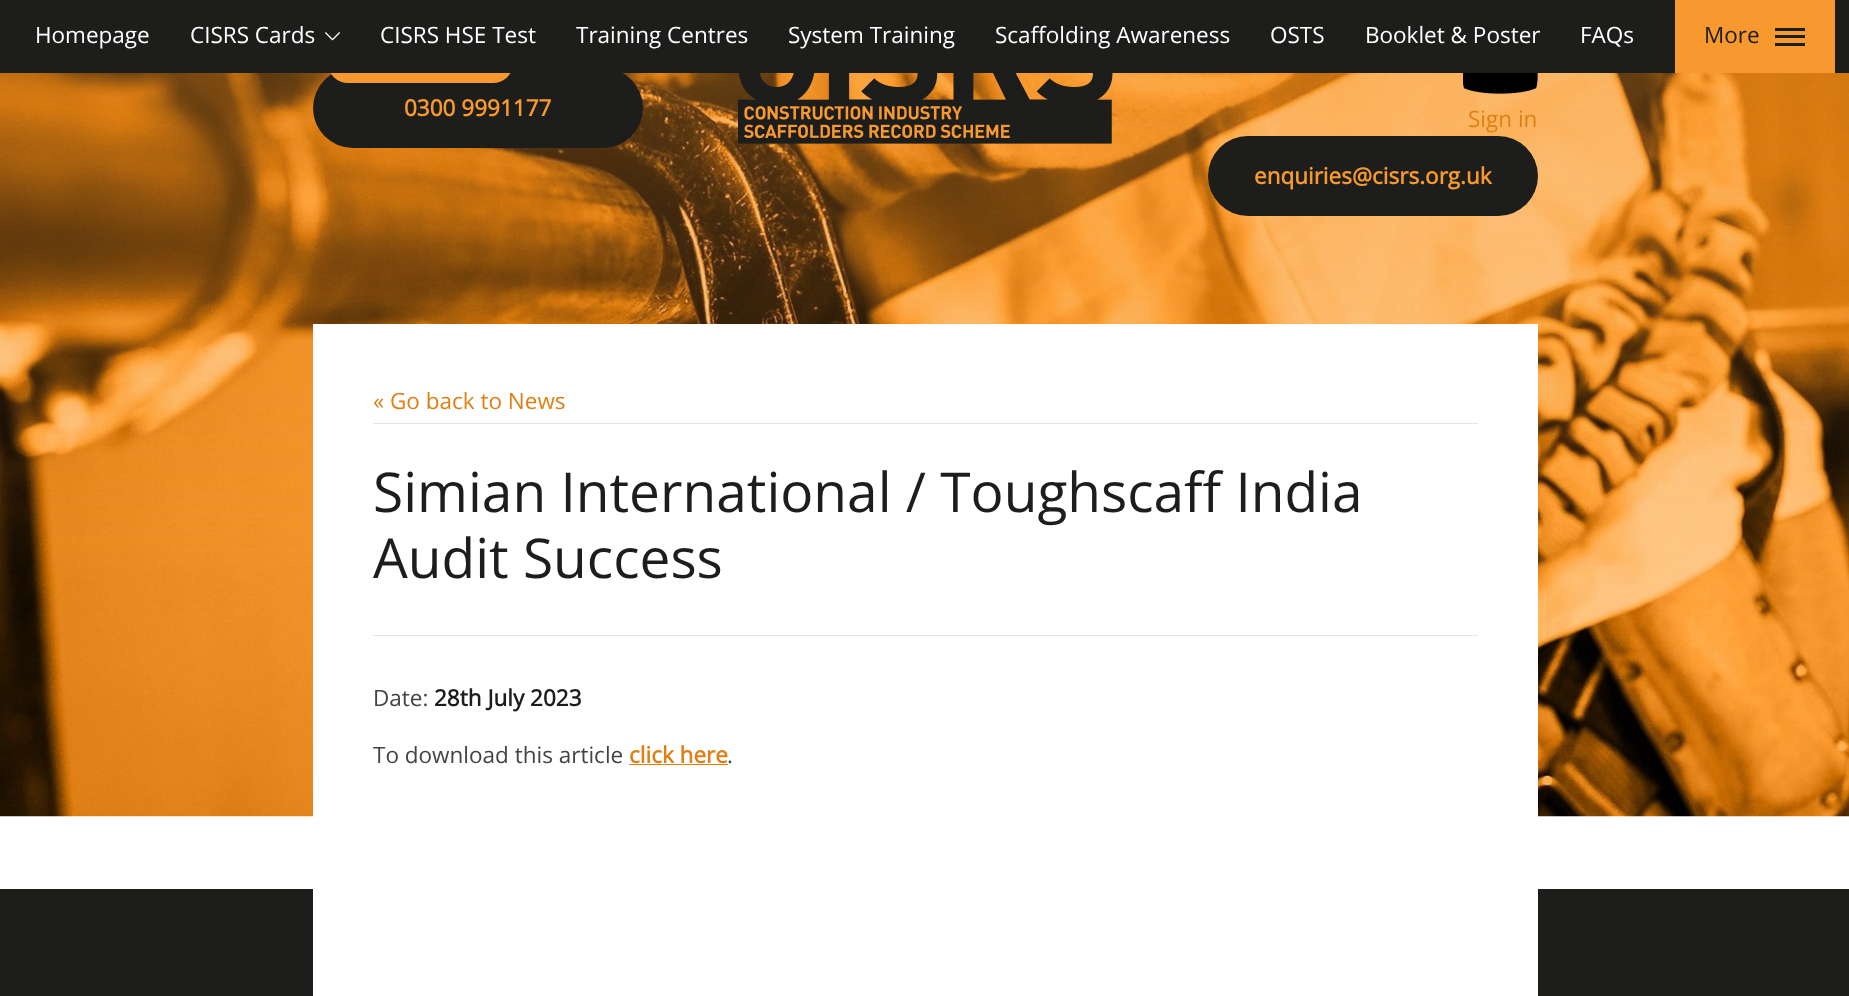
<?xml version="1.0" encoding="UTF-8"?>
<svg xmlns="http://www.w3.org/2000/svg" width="1849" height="996">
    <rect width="100%" height="100%" fill="#FFFFFF"/>
    <image x="0" y="73" width="1849" height="744" href="img_02.png"/>
    <rect x="313" y="68" width="330" height="80" rx="40" fill="#1D1D1B"/>
    <rect x="328" y="43" width="185" height="40" rx="20" fill="#F7992E"/>
    <rect x="0" y="0" width="1849" height="73" fill="#1D1D1B"/>
    <text x="35" y="43" font-family="Open Sans" font-size="22.5" fill="#FFFFFF">Homepage</text>
    <text x="190" y="43" font-family="Open Sans" font-size="22.5" fill="#FFFFFF">CISRS Cards</text>
    <image x="325" y="32" width="15" height="9" href="img_01.png"/>
    <text x="380" y="43" font-family="Open Sans" font-size="22.5" fill="#FFFFFF">CISRS HSE Test</text>
    <text x="576" y="43" font-family="Open Sans" font-size="22.5" fill="#FFFFFF">Training Centres</text>
    <text x="788" y="43" font-family="Open Sans" font-size="22.5" fill="#FFFFFF">System Training</text>
    <text x="995" y="43" font-family="Open Sans" font-size="22.5" fill="#FFFFFF">Scaffolding Awareness</text>
    <text x="1270" y="43" font-family="Open Sans" font-size="22.5" fill="#FFFFFF">OSTS</text>
    <text x="1365" y="43" font-family="Open Sans" font-size="22.5" fill="#FFFFFF">Booklet &amp; Poster</text>
    <text x="1580" y="43" font-family="Open Sans" font-size="22.5" fill="#FFFFFF">FAQs</text>
    <rect x="1675" y="0" width="160" height="73" fill="#F7992E"/>
    <text x="1704" y="43" font-family="Open Sans" font-size="22.5" fill="#1D1D1B">More</text>
    <rect x="1775" y="35" width="30" height="3" fill="#1D1D1B"/>
    <rect x="1775" y="28" width="30" height="3" fill="#1D1D1B"/>
    <rect x="1775" y="43" width="30" height="3" fill="#1D1D1B"/>
    <text x="404" y="116" font-family="Open Sans" font-size="22.5" font-weight="700" fill="#F7992E">0300 9991177</text>
    <image x="738" y="73" width="375" height="71" href="img_03.png"/>
    <image x="1463" y="73" width="75" height="21" href="img_04.png"/>
    <text x="1468" y="127" font-family="Open Sans" font-size="22.5" fill="#DE8014">Sign in</text>
    <rect x="1208" y="136" width="330" height="80" rx="40" fill="#1D1D1B"/>
    <text x="1254" y="184" font-family="Open Sans" font-size="22.5" font-weight="700" fill="#F7992E">enquiries@cisrs.org.uk</text>
    <rect x="0" y="889" width="1849" height="107" fill="#1D1D1B"/>
    <rect x="313" y="324" width="1225" height="672" fill="#FFFFFF"/>
    <rect x="373" y="423" width="1105" height="1" fill="#E4E4E3"/>
    <text x="373" y="409" font-family="Open Sans" font-size="22.5" fill="#DE8014">« Go back to News</text>
    <text font-family="Open Sans" font-size="55" fill="#1D1D1B">
        <tspan x="373" y="512">Simian International / Toughscaff India</tspan>
        <tspan x="373" y="578">Audit Success</tspan>
    </text>
    <rect x="373" y="635" width="1105" height="1" fill="#E4E4E3"/>
    <text x="373" y="706" font-family="Open Sans" font-size="22.5" fill="#444444">Date:</text>
    <text x="434" y="706" font-family="Open Sans" font-size="22.5" font-weight="700" fill="#1D1D1B">28th July 2023</text>
    <text x="373" y="763" font-family="Open Sans" font-size="22.5" fill="#444444">To download this article</text>
    <text x="629" y="763" font-family="Open Sans" font-size="22.5" font-weight="700" fill="#DE8014">click here</text>
    <rect x="629" y="764" width="99" height="1" fill="#DE8014"/>
    <text x="727" y="763" font-family="Open Sans" font-size="22.5" fill="#444444">.</text>
</svg>
